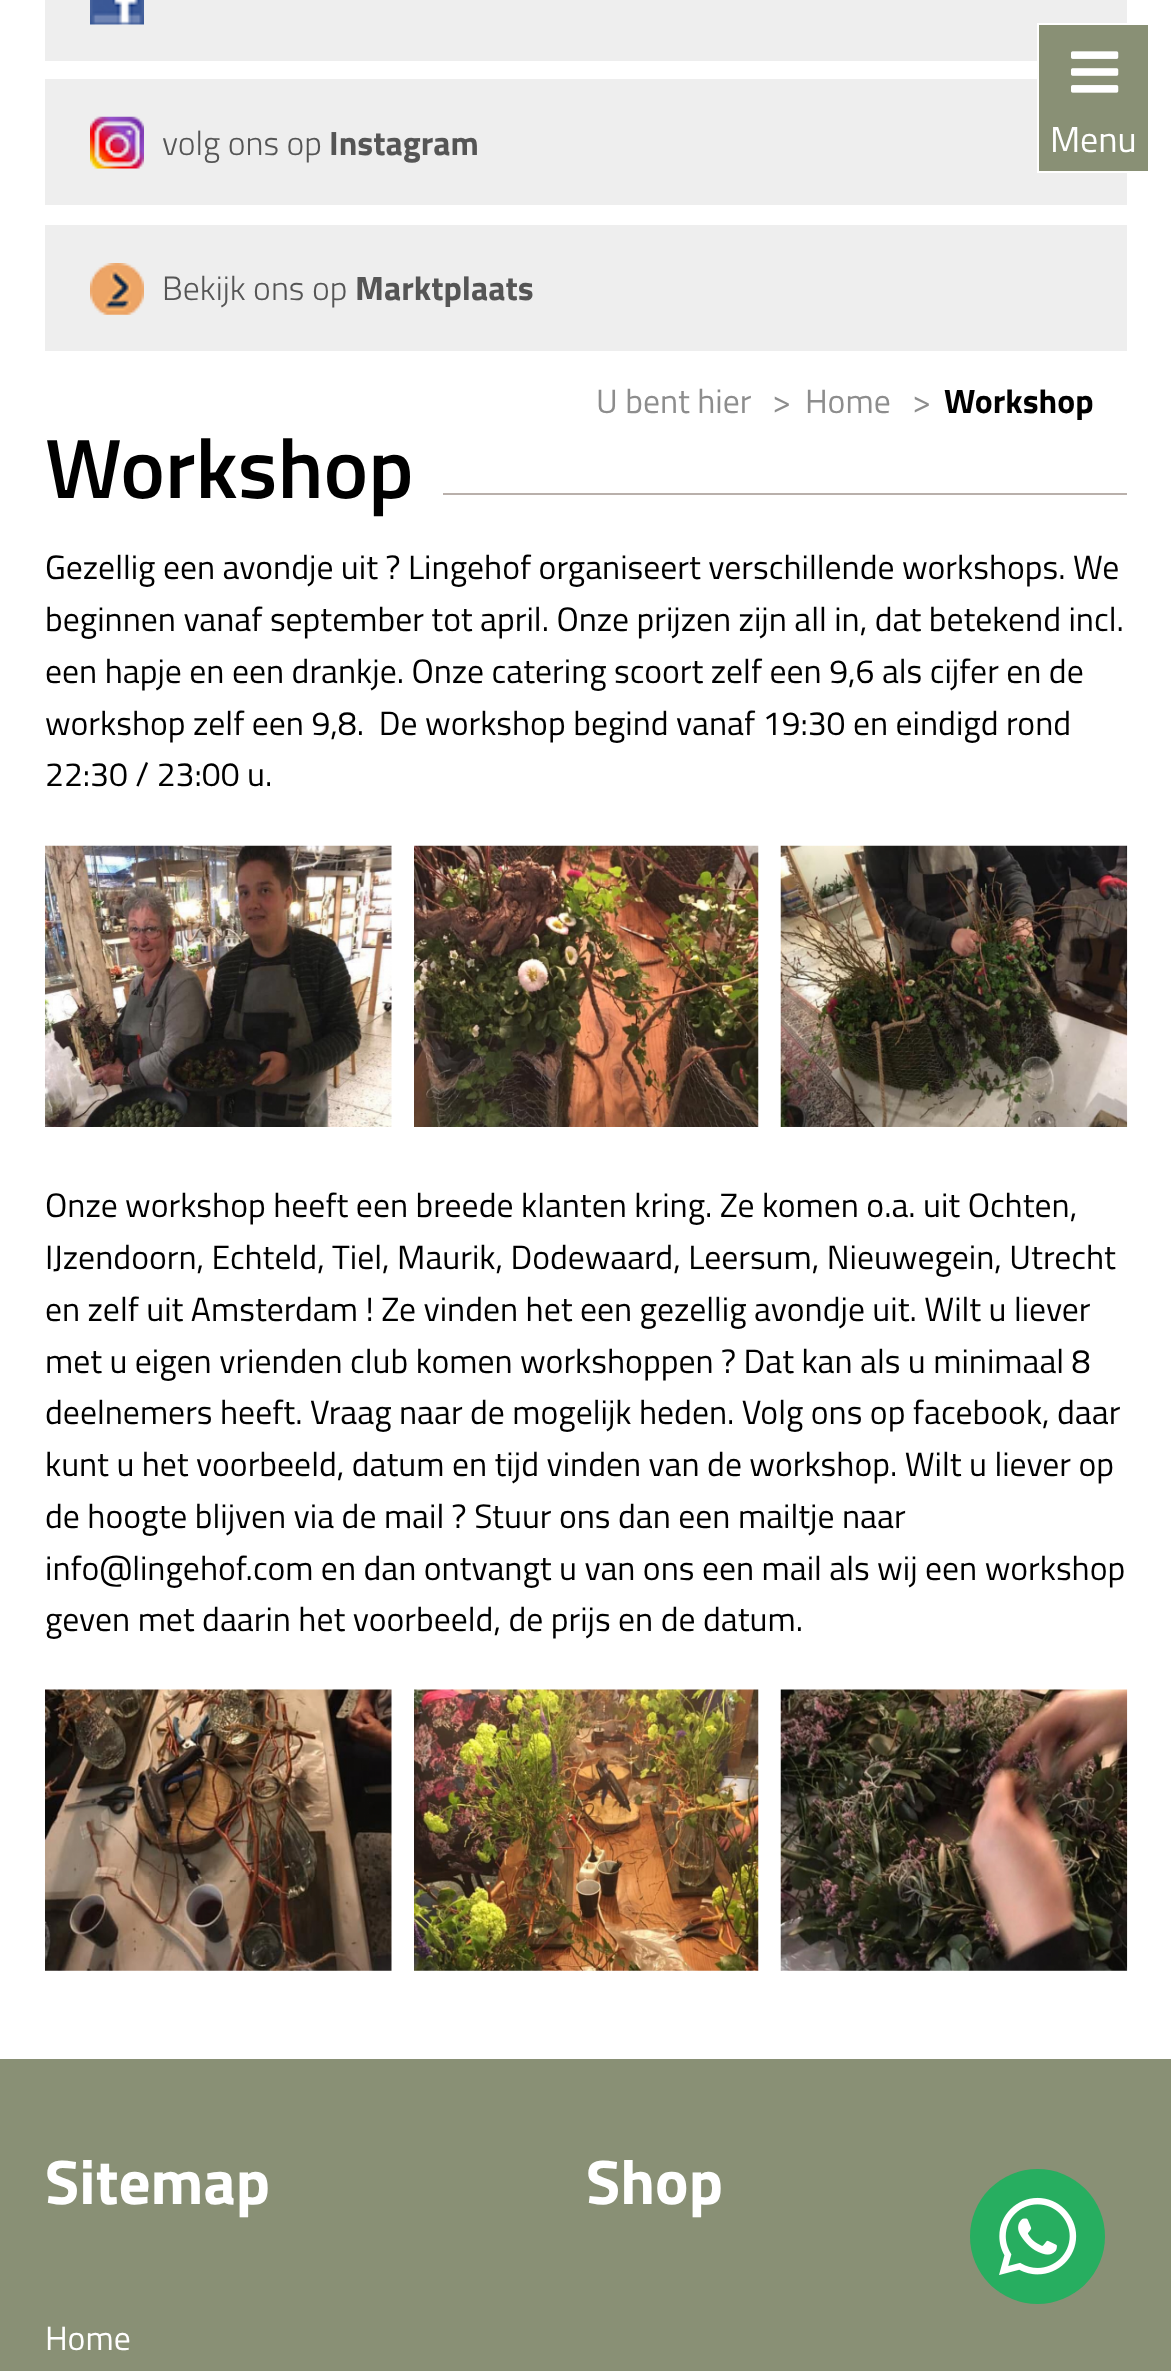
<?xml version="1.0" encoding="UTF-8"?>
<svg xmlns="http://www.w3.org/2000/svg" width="1171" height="2371">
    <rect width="100%" height="100%" fill="#FFFFFF"/>
    <rect x="45" y="0" width="1082" height="61" fill="#EEEEEE"/>
    <rect x="45" y="79" width="1082" height="126" fill="#EEEEEE"/>
    <rect x="1038" y="24" width="111" height="148" fill="#899075" stroke="#FFFFFF" stroke-width="2"/>
    <image x="1071" y="51" width="48" height="42" href="img_01.png"/>
    <text x="1050" y="152" font-family="Titillium Web" font-size="36" fill="#FFFFFF">Menu</text>
    <image x="90" y="0" width="54" height="25" href="img_02.png"/>
    <image x="90" y="116" width="54" height="53" href="img_03.png"/>
    <text x="162" y="155" font-family="Titillium Web" font-size="33.75" font-weight="300" fill="#555555">volg ons op</text>
    <text x="329" y="155" font-family="Titillium Web" font-size="33.75" font-weight="700" fill="#555555">Instagram</text>
    <rect x="45" y="225" width="1082" height="126" fill="#EEEEEE"/>
    <image x="90" y="263" width="54" height="52" href="img_04.png"/>
    <text x="162" y="300" font-family="Titillium Web" font-size="33.75" font-weight="300" fill="#555555">Bekijk ons op</text>
    <text x="355" y="300" font-family="Titillium Web" font-size="33.75" font-weight="700" fill="#555555">Marktplaats</text>
    <text x="596" y="413" font-family="Titillium Web" font-size="33.75" fill="#8D8D8D">U bent hier</text>
    <text x="772" y="413" font-family="Titillium Web" font-size="33.75" fill="#8D8D8D">&gt;</text>
    <text x="805" y="413" font-family="Titillium Web" font-size="33.75" fill="#8D8D8D">Home</text>
    <text x="912" y="413" font-family="Titillium Web" font-size="33.75" fill="#8D8D8D">&gt;</text>
    <text x="944" y="413" font-family="Titillium Web" font-size="33.75" font-weight="700" fill="#000000">Workshop</text>
    <text x="45" y="498" font-family="Titillium Web" font-size="84.5" font-weight="600" fill="#000000">Workshop</text>
    <rect x="443" y="493" width="684" height="2" fill="#B9B0AB"/>
    <text font-family="Titillium Web" font-size="33.75" fill="#000000" xml:space="preserve"><tspan x="45" y="579">Gezellig een avondje uit ? Lingehof organiseert verschillende workshops. We</tspan><tspan x="45" y="631">beginnen vanaf september tot april. Onze prijzen zijn all in, dat betekend incl.</tspan><tspan x="45" y="683">een hapje en een drankje. Onze catering scoort zelf een 9,6 als cijfer en de</tspan><tspan x="45" y="735">workshop zelf een 9,8.  De workshop begind vanaf 19:30 en eindigd rond</tspan><tspan x="45" y="786">22:30 / 23:00 u.</tspan></text>
    <image x="45" y="845" width="347" height="282" href="img_05.png"/>
    <image x="414" y="845" width="345" height="282" href="img_06.png"/>
    <image x="780" y="845" width="348" height="282" href="img_07.png"/>
    <text font-family="Titillium Web" font-size="33.75" fill="#000000">
        <tspan x="45" y="1217">Onze workshop heeft een breede klanten kring. Ze komen o.a. uit Ochten,</tspan>
        <tspan x="45" y="1269">IJzendoorn, Echteld, Tiel, Maurik, Dodewaard, Leersum, Nieuwegein, Utrecht</tspan>
        <tspan x="45" y="1321">en zelf uit Amsterdam ! Ze vinden het een gezellig avondje uit. Wilt u liever</tspan>
        <tspan x="45" y="1373">met u eigen vrienden club komen workshoppen ? Dat kan als u minimaal 8</tspan>
        <tspan x="45" y="1424">deelnemers heeft. Vraag naar de mogelijk heden. Volg ons op facebook, daar</tspan>
        <tspan x="45" y="1476">kunt u het voorbeeld, datum en tijd vinden van de workshop. Wilt u liever op</tspan>
        <tspan x="45" y="1528">de hoogte blijven via de mail ? Stuur ons dan een mailtje naar</tspan>
        <tspan x="45" y="1580">info@lingehof.com en dan ontvangt u van ons een mail als wij een workshop</tspan>
        <tspan x="45" y="1631">geven met daarin het voorbeeld, de prijs en de datum.</tspan>
    </text>
    <image x="45" y="1689" width="347" height="282" href="img_08.png"/>
    <image x="414" y="1689" width="345" height="282" href="img_09.png"/>
    <image x="780" y="1689" width="348" height="282" href="img_10.png"/>
    <rect x="0" y="2059" width="1171" height="312" fill="#899075"/>
    <text x="45" y="2204" font-family="Titillium Web" font-size="63" font-weight="700" fill="#FFFFFF">Sitemap</text>
    <text x="45" y="2350" font-family="Titillium Web" font-size="33.75" fill="#FFFFFF">Home</text>
    <text x="586" y="2204" font-family="Titillium Web" font-size="63" font-weight="700" fill="#FFFFFF">Shop</text>
    <circle cx="1037.5" cy="2236.5" r="67.5" fill="#27AE60"/>
    <image x="999" y="2197" width="78" height="78" href="img_11.png"/>
</svg>
